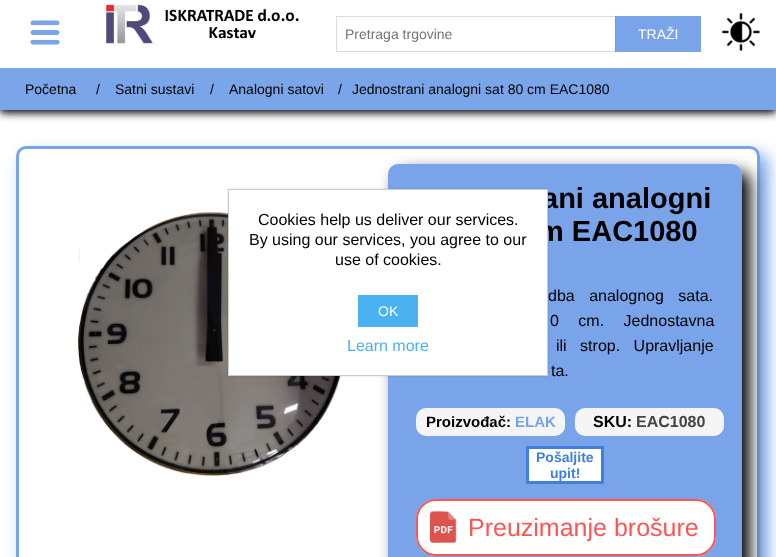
<?xml version="1.0" encoding="UTF-8"?>
<svg xmlns="http://www.w3.org/2000/svg" width="776" height="557">
    <defs>
        <filter id="blur1" x="-50%" y="-200%" width="200%" height="500%"><feGaussianBlur stdDeviation="4"/></filter>
        <clipPath id="clip1"><path d="M 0 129 H 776 V 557 H 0 Z M 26 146 H 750 C 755.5 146 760 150.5 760 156 V 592 C 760 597.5 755.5 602 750 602 H 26 C 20.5 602 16 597.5 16 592 V 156 C 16 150.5 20.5 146 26 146 Z" clip-rule="evenodd"/></clipPath>
        <filter id="blur2" x="-50%" y="-200%" width="200%" height="500%"><feGaussianBlur stdDeviation="8"/></filter>
        <clipPath id="clip2"><path d="M 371 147 H 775 V 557 H 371 Z M 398 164 H 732 C 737.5 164 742 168.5 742 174 V 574 C 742 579.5 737.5 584 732 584 H 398 C 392.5 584 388 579.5 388 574 V 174 C 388 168.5 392.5 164 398 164 Z" clip-rule="evenodd"/></clipPath>
        <filter id="blur3" x="-50%" y="-200%" width="200%" height="500%"><feGaussianBlur stdDeviation="1"/></filter>
    </defs>
    <rect width="100%" height="100%" fill="#FFFFFF"/>
    <rect x="0" y="71" width="776" height="42" fill="#000000" filter="url(#blur1)"/>
    <rect x="0" y="62" width="776" height="6" fill="#FFFFFF"/>
    <image x="30" y="20" width="30" height="25" href="img_01.png"/>
    <image x="106" y="4" width="193" height="40" href="img_02.png"/>
    <rect x="336.5" y="16.5" width="279" height="35" fill="none" stroke="#DDDDDD"/>
    <text x="345" y="39" font-family="Liberation Sans" font-size="14" fill="#757575">Pretraga trgovine</text>
    <rect x="615" y="16" width="86" height="36" fill="#407EDF" fill-opacity="0.7"/>
    <text x="638" y="39" font-family="Liberation Sans" font-size="14" fill="#FFFFFF">TRAŽI</text>
    <image x="722" y="13" width="38" height="38" href="img_03.png"/>
    <rect x="0" y="68" width="776" height="42" fill="#7AA5E9"/>
    <text x="25" y="94" font-family="Liberation Sans" font-size="14" fill="#000000">Početna</text>
    <text x="96" y="94" font-family="Liberation Sans" font-size="14" fill="#000000">/</text>
    <text x="115" y="94" font-family="Liberation Sans" font-size="14" fill="#000000">Satni sustavi</text>
    <text x="210" y="94" font-family="Liberation Sans" font-size="14" fill="#000000">/</text>
    <text x="229" y="94" font-family="Liberation Sans" font-size="14" fill="#000000">Analogni satovi</text>
    <text x="338" y="94" font-family="Liberation Sans" font-size="14" fill="#000000">/</text>
    <text x="352" y="94" font-family="Liberation Sans" font-size="14" fill="#000000">Jednostrani analogni sat 80 cm EAC1080</text>
    <g clip-path="url(#clip1)">
        <rect x="24" y="154" width="744" height="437" rx="10" fill="#407EDF" fill-opacity="0.7" filter="url(#blur2)"/>
    </g>
    <rect x="17.5" y="147.5" width="741" height="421" rx="8.5" fill="none" stroke="#407EDF" stroke-opacity="0.7" stroke-width="3"/>
    <image x="78" y="212" width="263" height="264" href="img_04.png"/>
    <g clip-path="url(#clip2)">
        <rect x="396" y="172" width="354" height="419" rx="10" fill="#000000" filter="url(#blur2)"/>
    </g>
    <rect x="388" y="164" width="354" height="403" rx="10" fill="#407EDF" fill-opacity="0.7"/>
    <text x="542" y="208" font-family="Liberation Sans" font-size="29" font-weight="700" fill="#000000">ani analogni</text>
    <text x="538" y="241" font-family="Liberation Sans" font-size="29" font-weight="700" fill="#000000">m EAC1080</text>
    <text x="548" y="301" word-spacing="10" font-family="Liberation Sans" font-size="16" fill="#000000">dba analognog sata.</text>
    <text x="550" y="326" word-spacing="15" font-family="Liberation Sans" font-size="16" fill="#000000">0 cm. Jednostavna</text>
    <text x="556" y="351" word-spacing="9" font-family="Liberation Sans" font-size="16" fill="#000000">ili strop. Upravljanje</text>
    <text x="551" y="376" font-family="Liberation Sans" font-size="16" fill="#000000">ta.</text>
    <rect x="416" y="408" width="149" height="28" rx="10" fill="#F5F5F5"/>
    <text x="426" y="427" font-family="Liberation Sans" font-size="15" font-weight="700" fill="#000000">Proizvođač:</text>
    <text x="515" y="427" font-family="Liberation Sans" font-size="15" font-weight="700" fill="#77A2E6">ELAK</text>
    <rect x="575" y="408" width="149" height="28" rx="10" fill="#F5F5F5"/>
    <text x="593" y="427" font-family="Liberation Sans" font-size="16" font-weight="700" fill="#000000">SKU:</text>
    <text x="636" y="427" font-family="Liberation Sans" font-size="16" font-weight="700" fill="#444444">EAC1080</text>
    <rect x="527.5" y="447.5" width="75" height="35" fill="#FFFFFF" stroke="#407EDF" stroke-width="3"/>
    <text x="536" y="462" font-family="Liberation Sans" font-size="14" font-weight="700" fill="#407EDF">Pošaljite</text>
    <text x="550" y="478" font-family="Liberation Sans" font-size="14" font-weight="700" fill="#407EDF">upit!</text>
    <rect x="416" y="499" width="300" height="57" rx="20" fill="#FFFFFF"/>
    <image x="429" y="510" width="28" height="33" href="img_05.png"/>
    <rect x="417" y="500" width="298" height="55" rx="19" fill="none" stroke="#FD5454" stroke-width="2"/>
    <text x="468" y="536" font-family="Liberation Sans" font-size="25" fill="#FD5454">Preuzimanje brošure</text>
    <rect x="228" y="189" width="320" height="187" fill="#000000" fill-opacity="0.15" filter="url(#blur3)"/>
    <rect x="228.5" y="189.5" width="319" height="186" fill="#FFFFFF" stroke="#CCCCCC"/>
    <text x="258" y="225" font-family="Liberation Sans" font-size="16" fill="#000000">Cookies help us deliver our services.</text>
    <text x="249" y="245" font-family="Liberation Sans" font-size="16" fill="#000000">By using our services, you agree to our</text>
    <text x="335" y="265" font-family="Liberation Sans" font-size="16" fill="#000000">use of cookies.</text>
    <rect x="358" y="295" width="60" height="32" fill="#4AB2F1"/>
    <text x="378" y="316" font-family="Liberation Sans" font-size="14" fill="#FFFFFF">OK</text>
    <text x="347" y="351" font-family="Liberation Sans" font-size="16" fill="#4AB2F1">Learn more</text>
</svg>
